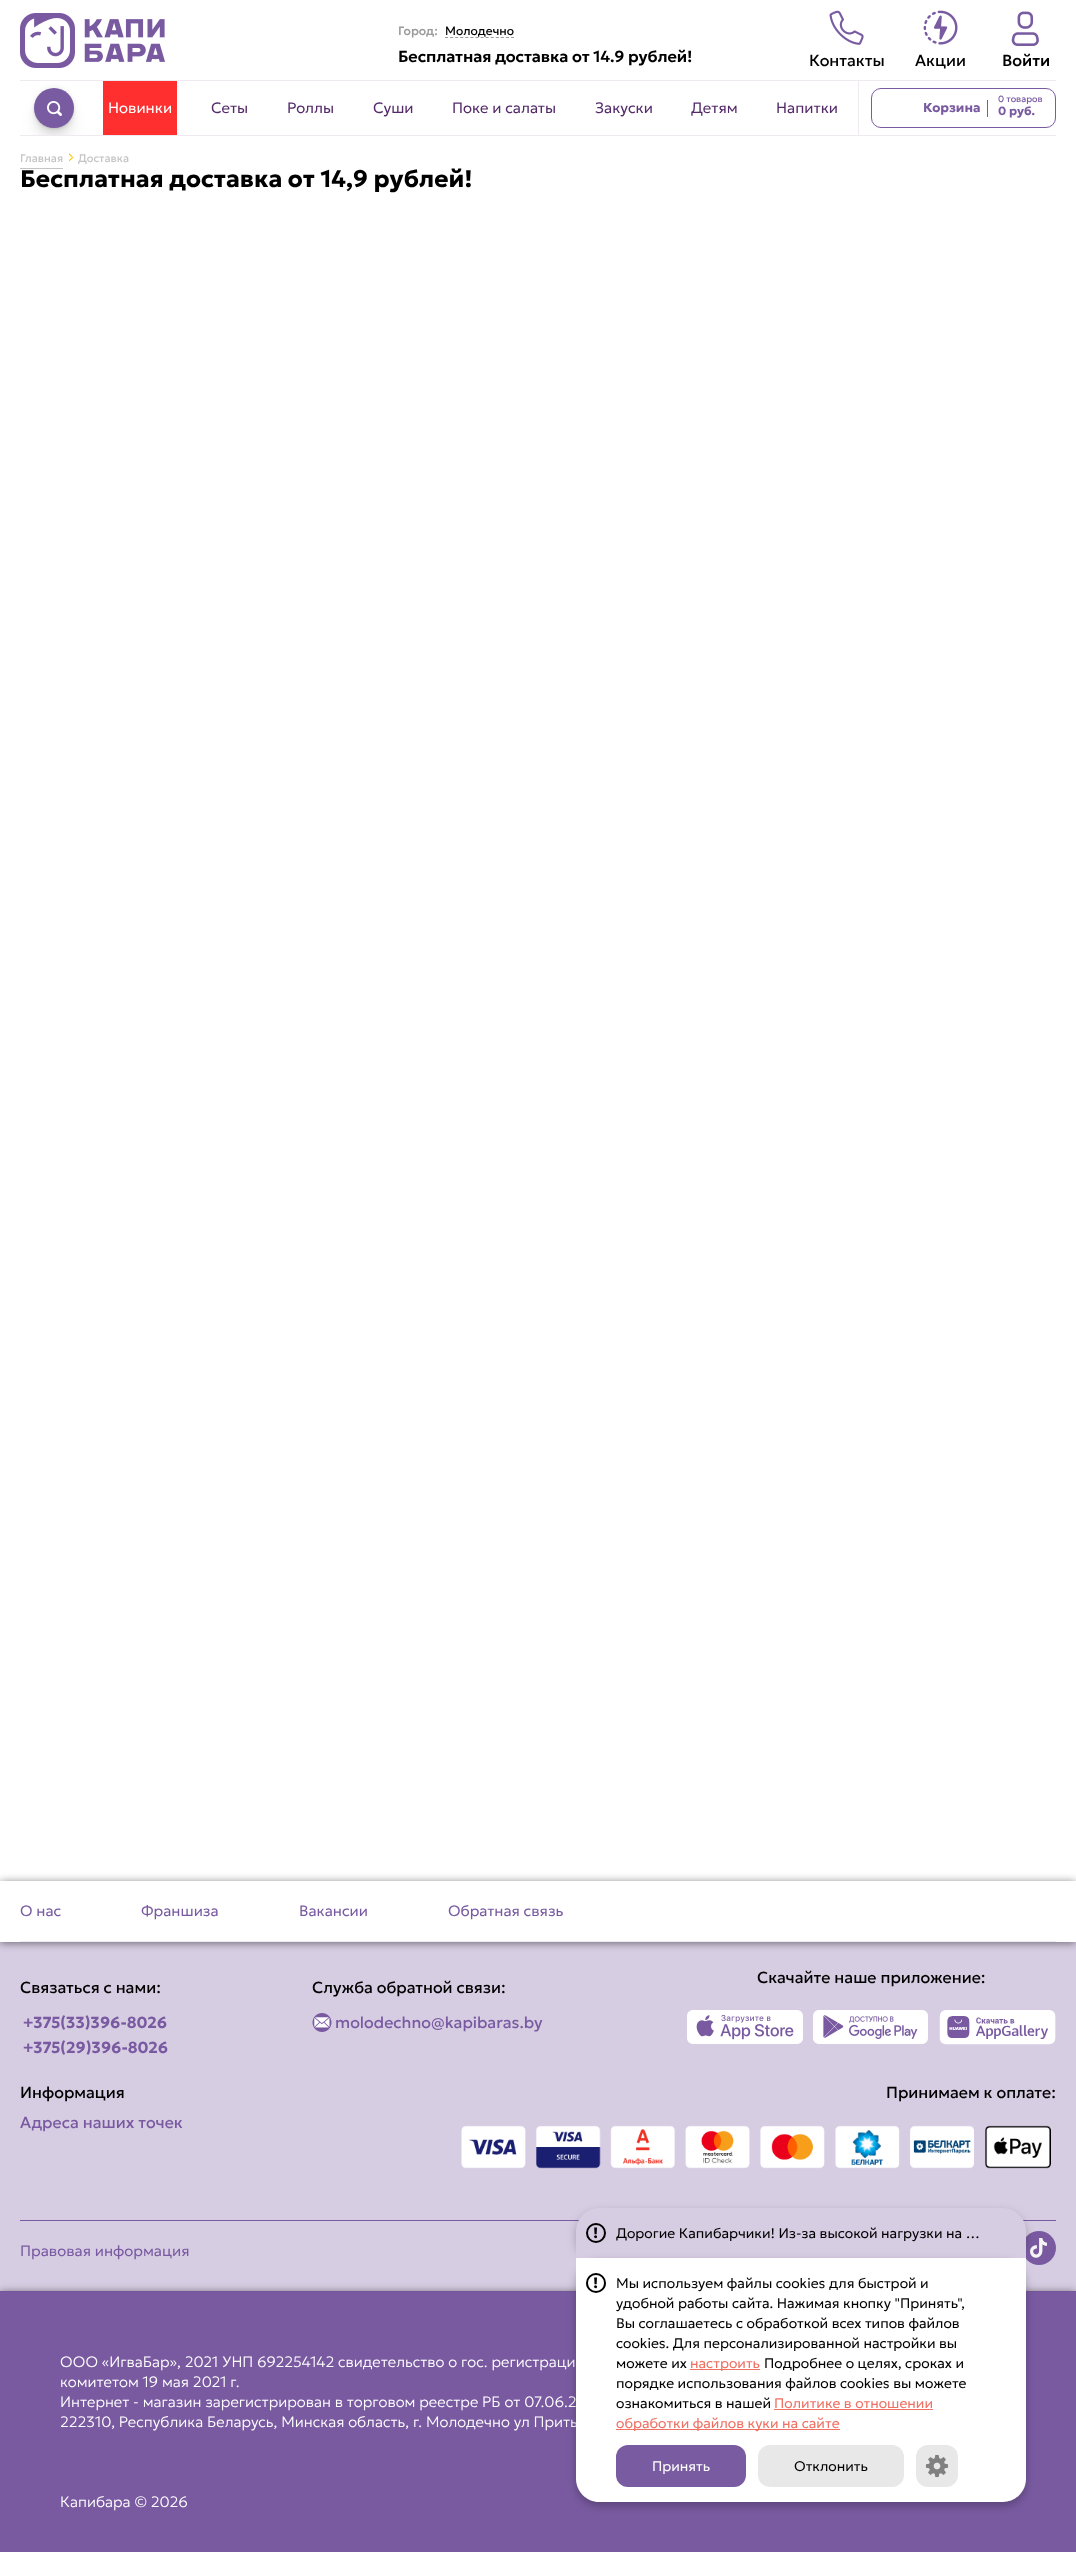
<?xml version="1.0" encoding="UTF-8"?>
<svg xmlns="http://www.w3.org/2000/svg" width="1076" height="2552">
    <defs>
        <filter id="blur1" x="-50%" y="-200%" width="200%" height="500%"><feGaussianBlur stdDeviation="2"/></filter>
        <clipPath id="clip1"><rect x="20" y="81" width="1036" height="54"/></clipPath>
        <filter id="blur2" x="-50%" y="-200%" width="200%" height="500%"><feGaussianBlur stdDeviation="8"/></filter>
        <filter id="blur3" x="-50%" y="-200%" width="200%" height="500%"><feGaussianBlur stdDeviation="4"/></filter>
        <filter id="blur4" x="-50%" y="-200%" width="200%" height="500%"><feGaussianBlur stdDeviation="1"/></filter>
        <filter id="blur5" x="-50%" y="-200%" width="200%" height="500%"><feGaussianBlur stdDeviation="0.5"/></filter>
        <filter id="blur6" x="-50%" y="-200%" width="200%" height="500%"><feGaussianBlur stdDeviation="5"/></filter>
    </defs>
    <rect width="100%" height="100%" fill="#FFFFFF"/>
    <image x="20" y="13" width="145" height="55" href="img_01.png"/>
    <text x="398" y="35" font-family="Geologica" font-size="12" font-weight="500" fill="#9B9B9B">Город:</text>
    <path d="M 445 37.5 H 514" fill="none" stroke="#9B9B9B" stroke-dasharray="3 2.08"/>
    <text x="445" y="35" font-family="Geologica" font-size="12" fill="#000000">Молодечно</text>
    <text x="398" y="62" font-family="Geologica" font-size="16" font-weight="600" letter-spacing="-0.1" fill="#000000">Бесплатная доставка от 14.9 рублей!</text>
    <image x="829" y="10" width="35" height="35" href="img_02.png"/>
    <text x="809" y="66" font-family="Geologica" font-size="16" fill="#000000">Контакты</text>
    <image x="923" y="10" width="35" height="35" href="img_03.png"/>
    <text x="915" y="66" font-family="Geologica" font-size="16" fill="#000000">Акции</text>
    <image x="1011" y="11" width="28" height="35" href="img_04.png"/>
    <text x="1002" y="66" font-family="Geologica" font-size="16" font-weight="500" fill="#000000">Войти</text>
    <rect x="20" y="80" width="1036" height="1" fill="#EEEAF0"/>
    <rect x="20" y="135" width="1036" height="1" fill="#EEEAF0"/>
    <rect x="858" y="81" width="1" height="54" fill="#EEEAF0"/>
    <rect x="34" y="86" width="40" height="40" rx="20" fill="#000000" fill-opacity="0.05" filter="url(#blur1)"/>
    <g clip-path="url(#clip1)">
        <rect x="34" y="104" width="40" height="40" rx="20" fill="#000000" fill-opacity="0.05" filter="url(#blur2)"/>
        <rect x="34" y="96" width="40" height="40" rx="20" fill="#000000" fill-opacity="0.05" filter="url(#blur3)"/>
    </g>
    <rect x="34" y="92" width="40" height="40" rx="20" fill="#000000" fill-opacity="0.05" filter="url(#blur1)"/>
    <rect x="34" y="90" width="40" height="40" rx="20" fill="#000000" fill-opacity="0.05" filter="url(#blur4)"/>
    <rect x="34" y="89" width="40" height="40" rx="20" fill="#000000" fill-opacity="0.05" filter="url(#blur5)"/>
    <circle cx="54" cy="108" r="20" fill="#795BA2"/>
    <image x="47" y="101" width="15" height="15" href="img_05.png"/>
    <rect x="103" y="81" width="74" height="54" fill="#FF2E2F"/>
    <text x="108" y="113" font-family="Geologica" font-size="15" font-weight="300" fill="#FFFFFF">Новинки</text>
    <text x="211" y="113" font-family="Geologica" font-size="15" font-weight="300" fill="#542A69">Сеты</text>
    <text x="287" y="113" font-family="Geologica" font-size="15" font-weight="300" fill="#542A69">Роллы</text>
    <text x="373" y="113" font-family="Geologica" font-size="15" font-weight="300" fill="#542A69">Суши</text>
    <text x="452" y="113" font-family="Geologica" font-size="15" font-weight="300" fill="#542A69">Поке и салаты</text>
    <text x="595" y="113" font-family="Geologica" font-size="15" font-weight="300" fill="#542A69">Закуски</text>
    <text x="691" y="113" font-family="Geologica" font-size="15" font-weight="300" fill="#542A69">Детям</text>
    <text x="776" y="113" font-family="Geologica" font-size="15" font-weight="300" fill="#542A69">Напитки</text>
    <rect x="871.5" y="88.5" width="184" height="39" rx="9.5" fill="none" stroke="#795BA2"/>
    <text x="923" y="112" font-family="Geologica" font-size="13" font-weight="700" fill="#795AA1">Корзина</text>
    <rect x="987" y="100" width="1" height="17" fill="#795BA2"/>
    <text x="998" y="102" font-family="Geologica" font-size="9" fill="#795AA1">0 товаров</text>
    <text x="998" y="115" font-family="Geologica" font-size="12" font-weight="700" fill="#795AA1">0 руб.</text>
    <text x="20" y="187" font-family="Geologica" font-size="24" font-weight="700" fill="#000000">Бесплатная доставка от 14,9 рублей!</text>
    <rect x="20" y="168" width="43" height="1" fill="#C4C4C4"/>
    <text x="20" y="162" font-family="Geologica" font-size="11" fill="#C4C4C4">Главная</text>
    <path d="M 69 153 L 73.5 157.5 H 72 L 69 154.5 Z" fill="#FFC605"/>
    <path d="M 73.5 157.5 L 69 161.5 V 160 L 72 157.5 Z" fill="#FFC605"/>
    <text x="78" y="162" font-family="Geologica" font-size="11" fill="#C4C4C4">Доставка</text>
    <rect x="0" y="1942" width="1076" height="349" fill="#D7CDE3"/>
    <rect x="0" y="1882" width="1076" height="61" fill="#000000" fill-opacity="0.51" filter="url(#blur3)"/>
    <rect x="0" y="1881" width="1076" height="61" fill="#FFFFFF"/>
    <rect x="20" y="1941" width="1036" height="1" fill="#EEEAF0"/>
    <text x="20" y="1916" font-family="Geologica" font-size="15" font-weight="300" fill="#795AA1">О нас</text>
    <text x="141" y="1916" font-family="Geologica" font-size="15" font-weight="300" fill="#795AA1">Франшиза</text>
    <text x="299" y="1916" font-family="Geologica" font-size="15" font-weight="300" fill="#795AA1">Вакансии</text>
    <text x="448" y="1916" font-family="Geologica" font-size="15" font-weight="300" fill="#795AA1">Обратная связь</text>
    <text x="20" y="1993" font-family="Geologica" font-size="16" fill="#000000">Связаться с нами:</text>
    <text font-family="Geologica" font-size="16" font-weight="700" fill="#795AA1">
        <tspan x="23" y="2028">+375(33)396-8026</tspan>
        <tspan x="23" y="2053">+375(29)396-8026</tspan>
    </text>
    <text x="312" y="1993" font-family="Geologica" font-size="16" fill="#000000">Служба обратной связи:</text>
    <image x="312" y="2013" width="20" height="19" href="img_06.png"/>
    <text x="335" y="2028" font-family="Geologica" font-size="16" fill="#795AA1">molodechno@kapibaras.by</text>
    <text x="757" y="1983" font-family="Geologica" font-size="16" fill="#000000">Скачайте наше приложение:</text>
    <image x="687" y="2010" width="116" height="34" href="img_07.png"/>
    <image x="813" y="2010" width="115" height="34" href="img_08.png"/>
    <image x="939" y="2010" width="117" height="35" href="img_09.png"/>
    <text x="20" y="2098" font-family="Geologica" font-size="16" fill="#000000">Информация</text>
    <text x="20" y="2128" font-family="Geologica" font-size="16" fill="#795AA1">Адреса наших точек</text>
    <text x="886" y="2098" font-family="Geologica" font-size="16" fill="#000000">Принимаем к оплате:</text>
    <image x="461" y="2125" width="590" height="44" href="img_10.png"/>
    <rect x="20" y="2220" width="1036" height="1" fill="#795AA1"/>
    <text x="20" y="2256" font-family="Geologica" font-size="15" font-weight="300" fill="#795AA1">Правовая информация</text>
    <circle cx="1039" cy="2248" r="17" fill="#795AA1"/>
    <image x="1030" y="2238" width="17" height="20" href="img_11.png"/>
    <rect x="0" y="2292" width="1076" height="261" fill="#000000" fill-opacity="0.51" filter="url(#blur3)"/>
    <rect x="0" y="2292" width="1076" height="260" fill="#795AA1"/>
    <rect x="0" y="2291" width="1076" height="1" fill="#75559B"/>
    <text font-family="Geologica" font-size="15" font-weight="200" fill="#FFFFFF">
        <tspan x="60" y="2367">ООО «ИгваБар», 2021 УНП 692254142 свидетельство о гос. регистраци</tspan>
        <tspan x="60" y="2387">комитетом 19 мая 2021 г.</tspan>
        <tspan x="60" y="2407">Интернет - магазин зарегистрирован в торговом реестре РБ от 07.06.2</tspan>
        <tspan x="60" y="2427">222310, Республика Беларусь, Минская область, г. Молодечно ул Приты</tspan>
    </text>
    <text x="60" y="2507" font-family="Geologica" font-size="15" font-weight="200" fill="#FFFFFF">Капибара © 2026</text>
    <rect x="576" y="2212" width="450" height="50" rx="23" fill="#000000" fill-opacity="0.25" filter="url(#blur6)"/>
    <path d="M 599 2208 H 1003 C 1015.5 2208 1026 2218.5 1026 2231 V 2258 H 576 V 2231 C 576 2218.5 586.5 2208 599 2208 Z" fill="#D7CDE3"/>
    <circle cx="596" cy="2233" r="9" fill="none" stroke="#000000" stroke-width="2"/>
    <text x="593" y="2238" font-family="Geologica" font-size="15" font-weight="700" fill="#000000">!</text>
    <text x="616" y="2238" font-family="Geologica" font-size="14" font-weight="300" fill="#000000">Дорогие Капибарчики! Из-за высокой нагрузки на …</text>
    <rect x="576" y="2262" width="450" height="244" rx="23" fill="#000000" fill-opacity="0.25" filter="url(#blur6)"/>
    <path d="M 576 2258 H 1026 V 2479 C 1026 2491.5 1015.5 2502 1003 2502 H 599 C 586.5 2502 576 2491.5 576 2479 Z" fill="#FFFFFF"/>
    <circle cx="596" cy="2283" r="9" fill="none" stroke="#000000" stroke-width="2"/>
    <text x="593" y="2288" font-family="Geologica" font-size="15" font-weight="700" fill="#000000">!</text>
    <text font-family="Geologica" font-size="14" font-weight="300" fill="#000000">
        <tspan x="616" y="2288">Мы используем файлы cookies для быстрой и</tspan>
        <tspan x="616" y="2308">удобной работы сайта. Нажимая кнопку "Принять",</tspan>
        <tspan x="616" y="2328">Вы соглашаетесь с обработкой всех типов файлов</tspan>
        <tspan x="616" y="2348">cookies. Для персонализированной настройки вы</tspan>
        <tspan x="616" y="2368">можете их</tspan>
    </text>
    <rect x="690" y="2369" width="70" height="1" fill="#EE7164"/>
    <text x="690" y="2368" font-family="Geologica" font-size="14" font-weight="300" fill="#EE7164">настроить</text>
    <text x="764" y="2368" font-family="Geologica" font-size="14" font-weight="300" fill="#000000">Подробнее о целях, сроках и</text>
    <text font-family="Geologica" font-size="14" font-weight="300" fill="#000000">
        <tspan x="616" y="2388">порядке использования файлов cookies вы можете</tspan>
        <tspan x="616" y="2408">ознакомиться в нашей</tspan>
    </text>
    <text x="774" y="2408" font-family="Geologica" font-size="14" font-weight="300" fill="#EE7164">Политике в отношении</text>
    <rect x="774" y="2409" width="159" height="1" fill="#EE7164"/>
    <rect x="616" y="2429" width="224" height="1" fill="#EE7164"/>
    <text x="616" y="2428" font-family="Geologica" font-size="14" font-weight="300" fill="#EE7164">обработки файлов куки на сайте</text>
    <rect x="616" y="2445" width="130" height="42" rx="12" fill="#795BA2"/>
    <text x="652" y="2471" font-family="Geologica" font-size="14" font-weight="300" fill="#FFFFFF">Принять</text>
    <rect x="758" y="2445" width="146" height="42" rx="12" fill="#E8E8E8"/>
    <text x="794" y="2471" font-family="Geologica" font-size="14" font-weight="300" fill="#000000">Отклонить</text>
    <rect x="916" y="2445" width="42" height="42" rx="12" fill="#E8E8E8"/>
    <image x="925" y="2454" width="24" height="24" href="img_12.png"/>
</svg>
